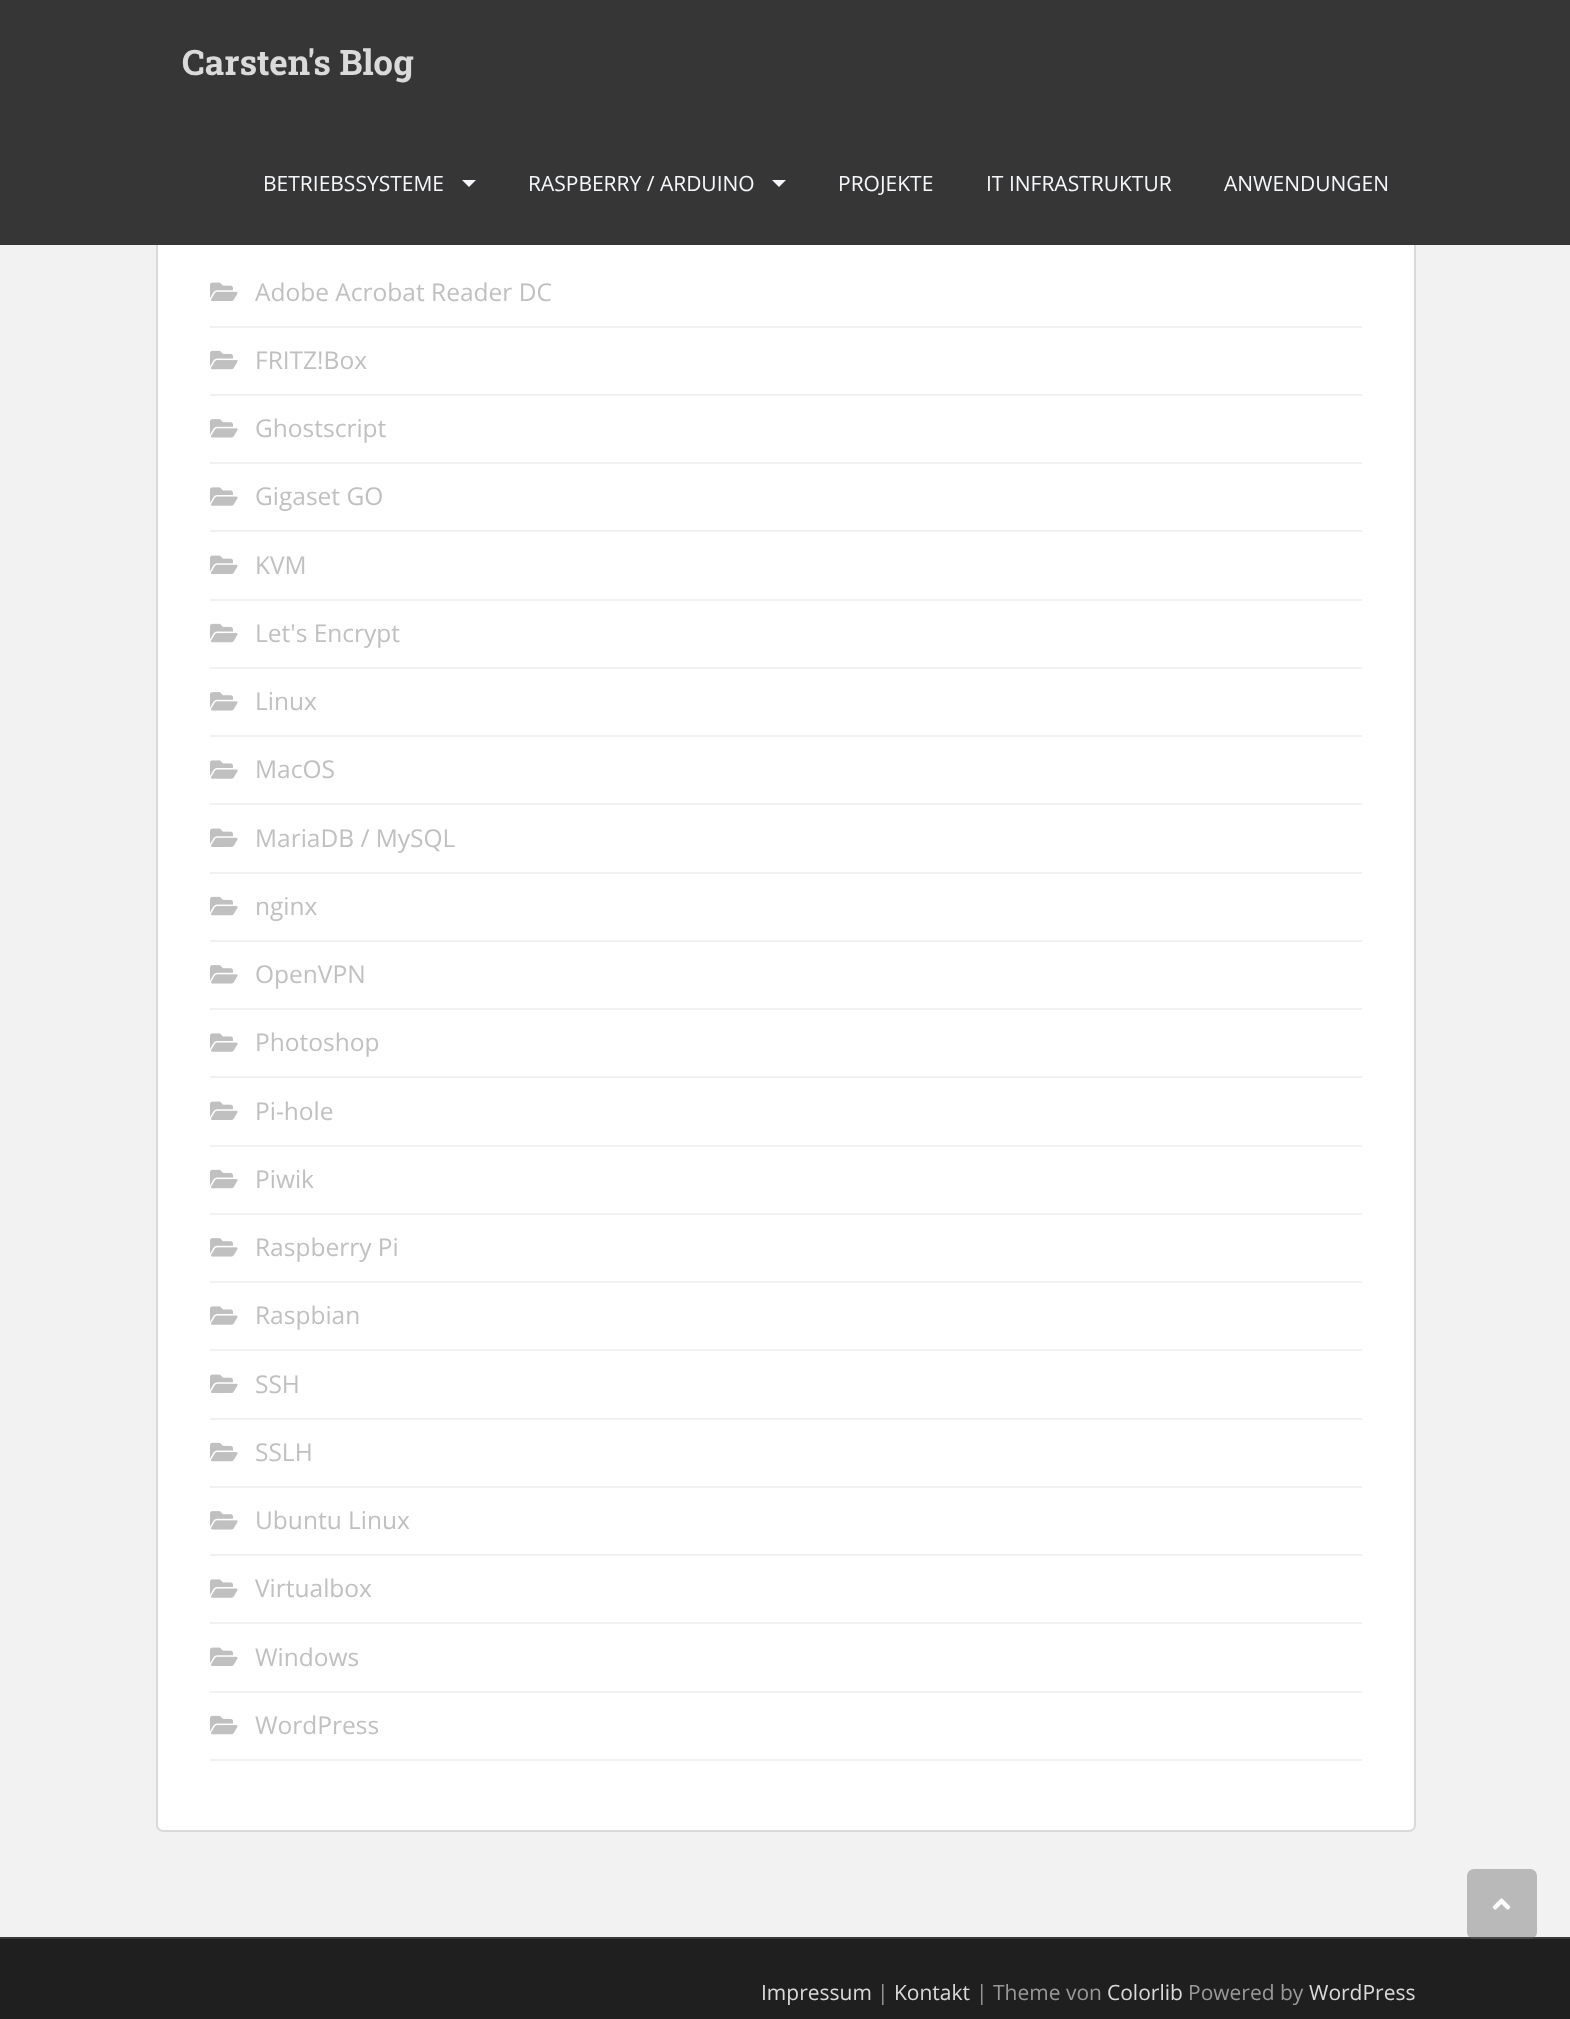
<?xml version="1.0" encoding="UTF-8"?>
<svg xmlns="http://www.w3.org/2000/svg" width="1570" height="2019">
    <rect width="100%" height="100%" fill="#F2F2F2"/>
    <rect x="157" y="-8" width="1258" height="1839" rx="6" fill="#FFFFFF" stroke="#DADADA" stroke-width="2"/>
    <rect x="0" y="0" width="1570" height="245" fill="#363636"/>
    <text x="182" y="75" font-family="Roboto Slab" font-size="35" font-weight="700" fill="#DADADA">Carsten's Blog</text>
    <text x="263" y="191" font-family="Open Sans" font-size="21" fill="#F5F7FA">BETRIEBSSYSTEME</text>
    <path d="M 462 180 H 476 L 469 187 Z" fill="#F5F7FA"/>
    <text x="528" y="191" font-family="Open Sans" font-size="21" fill="#F5F7FA">RASPBERRY / ARDUINO</text>
    <path d="M 772 180 H 786 L 779 187 Z" fill="#F5F7FA"/>
    <text x="838" y="191" font-family="Open Sans" font-size="21" fill="#F5F7FA">PROJEKTE</text>
    <text x="986" y="191" font-family="Open Sans" font-size="21" fill="#F5F7FA">IT INFRASTRUKTUR</text>
    <text x="1224" y="191" font-family="Open Sans" font-size="21" fill="#F5F7FA">ANWENDUNGEN</text>
    <rect x="210" y="326" width="1152" height="2" fill="#F2F2F2"/>
    <image x="210" y="282" width="28" height="19" href="img_01.png"/>
    <text x="255" y="301" font-family="Open Sans" font-size="24.5" fill="#C1C0C0">Adobe Acrobat Reader DC</text>
    <rect x="210" y="394" width="1152" height="2" fill="#F2F2F2"/>
    <image x="210" y="350" width="28" height="20" href="img_02.png"/>
    <text x="255" y="369" font-family="Open Sans" font-size="24.5" fill="#C1C0C0">FRITZ!Box</text>
    <rect x="210" y="462" width="1152" height="2" fill="#F2F2F2"/>
    <image x="210" y="419" width="28" height="19" href="img_03.png"/>
    <text x="255" y="437" font-family="Open Sans" font-size="24.5" fill="#C1C0C0">Ghostscript</text>
    <rect x="210" y="530" width="1152" height="2" fill="#F2F2F2"/>
    <image x="210" y="487" width="28" height="19" href="img_04.png"/>
    <text x="255" y="505" font-family="Open Sans" font-size="24.5" fill="#C1C0C0">Gigaset GO</text>
    <rect x="210" y="599" width="1152" height="2" fill="#F2F2F2"/>
    <image x="210" y="555" width="28" height="19" href="img_01.png"/>
    <text x="255" y="574" font-family="Open Sans" font-size="24.5" fill="#C1C0C0">KVM</text>
    <rect x="210" y="667" width="1152" height="2" fill="#F2F2F2"/>
    <image x="210" y="623" width="28" height="20" href="img_02.png"/>
    <text x="255" y="642" font-family="Open Sans" font-size="24.5" fill="#C1C0C0">Let's Encrypt</text>
    <rect x="210" y="735" width="1152" height="2" fill="#F2F2F2"/>
    <image x="210" y="692" width="28" height="19" href="img_03.png"/>
    <text x="255" y="710" font-family="Open Sans" font-size="24.5" fill="#C1C0C0">Linux</text>
    <rect x="210" y="803" width="1152" height="2" fill="#F2F2F2"/>
    <image x="210" y="760" width="28" height="19" href="img_04.png"/>
    <text x="255" y="778" font-family="Open Sans" font-size="24.5" fill="#C1C0C0">MacOS</text>
    <rect x="210" y="872" width="1152" height="2" fill="#F2F2F2"/>
    <image x="210" y="828" width="28" height="19" href="img_01.png"/>
    <text x="255" y="847" font-family="Open Sans" font-size="24.5" fill="#C1C0C0">MariaDB / MySQL</text>
    <rect x="210" y="940" width="1152" height="2" fill="#F2F2F2"/>
    <image x="210" y="896" width="28" height="20" href="img_02.png"/>
    <text x="255" y="915" font-family="Open Sans" font-size="24.5" fill="#C1C0C0">nginx</text>
    <rect x="210" y="1008" width="1152" height="2" fill="#F2F2F2"/>
    <image x="210" y="965" width="28" height="19" href="img_03.png"/>
    <text x="255" y="983" font-family="Open Sans" font-size="24.5" fill="#C1C0C0">OpenVPN</text>
    <rect x="210" y="1076" width="1152" height="2" fill="#F2F2F2"/>
    <image x="210" y="1033" width="28" height="19" href="img_04.png"/>
    <text x="255" y="1051" font-family="Open Sans" font-size="24.5" fill="#C1C0C0">Photoshop</text>
    <rect x="210" y="1145" width="1152" height="2" fill="#F2F2F2"/>
    <image x="210" y="1101" width="28" height="19" href="img_01.png"/>
    <text x="255" y="1120" font-family="Open Sans" font-size="24.5" fill="#C1C0C0">Pi-hole</text>
    <rect x="210" y="1213" width="1152" height="2" fill="#F2F2F2"/>
    <image x="210" y="1169" width="28" height="20" href="img_02.png"/>
    <text x="255" y="1188" font-family="Open Sans" font-size="24.5" fill="#C1C0C0">Piwik</text>
    <rect x="210" y="1281" width="1152" height="2" fill="#F2F2F2"/>
    <image x="210" y="1238" width="28" height="19" href="img_03.png"/>
    <text x="255" y="1256" font-family="Open Sans" font-size="24.5" fill="#C1C0C0">Raspberry Pi</text>
    <rect x="210" y="1349" width="1152" height="2" fill="#F2F2F2"/>
    <image x="210" y="1306" width="28" height="19" href="img_04.png"/>
    <text x="255" y="1324" font-family="Open Sans" font-size="24.5" fill="#C1C0C0">Raspbian</text>
    <rect x="210" y="1418" width="1152" height="2" fill="#F2F2F2"/>
    <image x="210" y="1374" width="28" height="19" href="img_01.png"/>
    <text x="255" y="1393" font-family="Open Sans" font-size="24.5" fill="#C1C0C0">SSH</text>
    <rect x="210" y="1486" width="1152" height="2" fill="#F2F2F2"/>
    <image x="210" y="1442" width="28" height="20" href="img_02.png"/>
    <text x="255" y="1461" font-family="Open Sans" font-size="24.5" fill="#C1C0C0">SSLH</text>
    <rect x="210" y="1554" width="1152" height="2" fill="#F2F2F2"/>
    <image x="210" y="1511" width="28" height="19" href="img_03.png"/>
    <text x="255" y="1529" font-family="Open Sans" font-size="24.5" fill="#C1C0C0">Ubuntu Linux</text>
    <rect x="210" y="1622" width="1152" height="2" fill="#F2F2F2"/>
    <image x="210" y="1579" width="28" height="19" href="img_04.png"/>
    <text x="255" y="1597" font-family="Open Sans" font-size="24.5" fill="#C1C0C0">Virtualbox</text>
    <rect x="210" y="1691" width="1152" height="2" fill="#F2F2F2"/>
    <image x="210" y="1647" width="28" height="19" href="img_01.png"/>
    <text x="255" y="1666" font-family="Open Sans" font-size="24.5" fill="#C1C0C0">Windows</text>
    <rect x="210" y="1759" width="1152" height="2" fill="#F2F2F2"/>
    <image x="210" y="1715" width="28" height="20" href="img_02.png"/>
    <text x="255" y="1734" font-family="Open Sans" font-size="24.5" fill="#C1C0C0">WordPress</text>
    <rect x="0" y="1939" width="1570" height="80" fill="#1F1F1F"/>
    <rect x="0" y="1937" width="1570" height="2" fill="#3A3A3A"/>
    <rect x="1467" y="1869" width="70" height="70" rx="7" fill="#646464" fill-opacity="0.4"/>
    <image x="1492" y="1898" width="19" height="12" href="img_05.png"/>
    <text x="761" y="2000" font-family="Open Sans" font-size="21" fill="#DADADA">Impressum</text>
    <text x="877" y="2000" font-family="Open Sans" font-size="21" fill="#999999">|</text>
    <text x="894" y="2000" font-family="Open Sans" font-size="21" fill="#DADADA">Kontakt</text>
    <text x="976" y="2000" font-family="Open Sans" font-size="21" fill="#999999">| Theme von</text>
    <text x="1107" y="2000" font-family="Open Sans" font-size="21" fill="#DADADA">Colorlib</text>
    <text x="1188" y="2000" font-family="Open Sans" font-size="21" fill="#999999">Powered by</text>
    <text x="1309" y="2000" font-family="Open Sans" font-size="21" fill="#DADADA">WordPress</text>
</svg>
